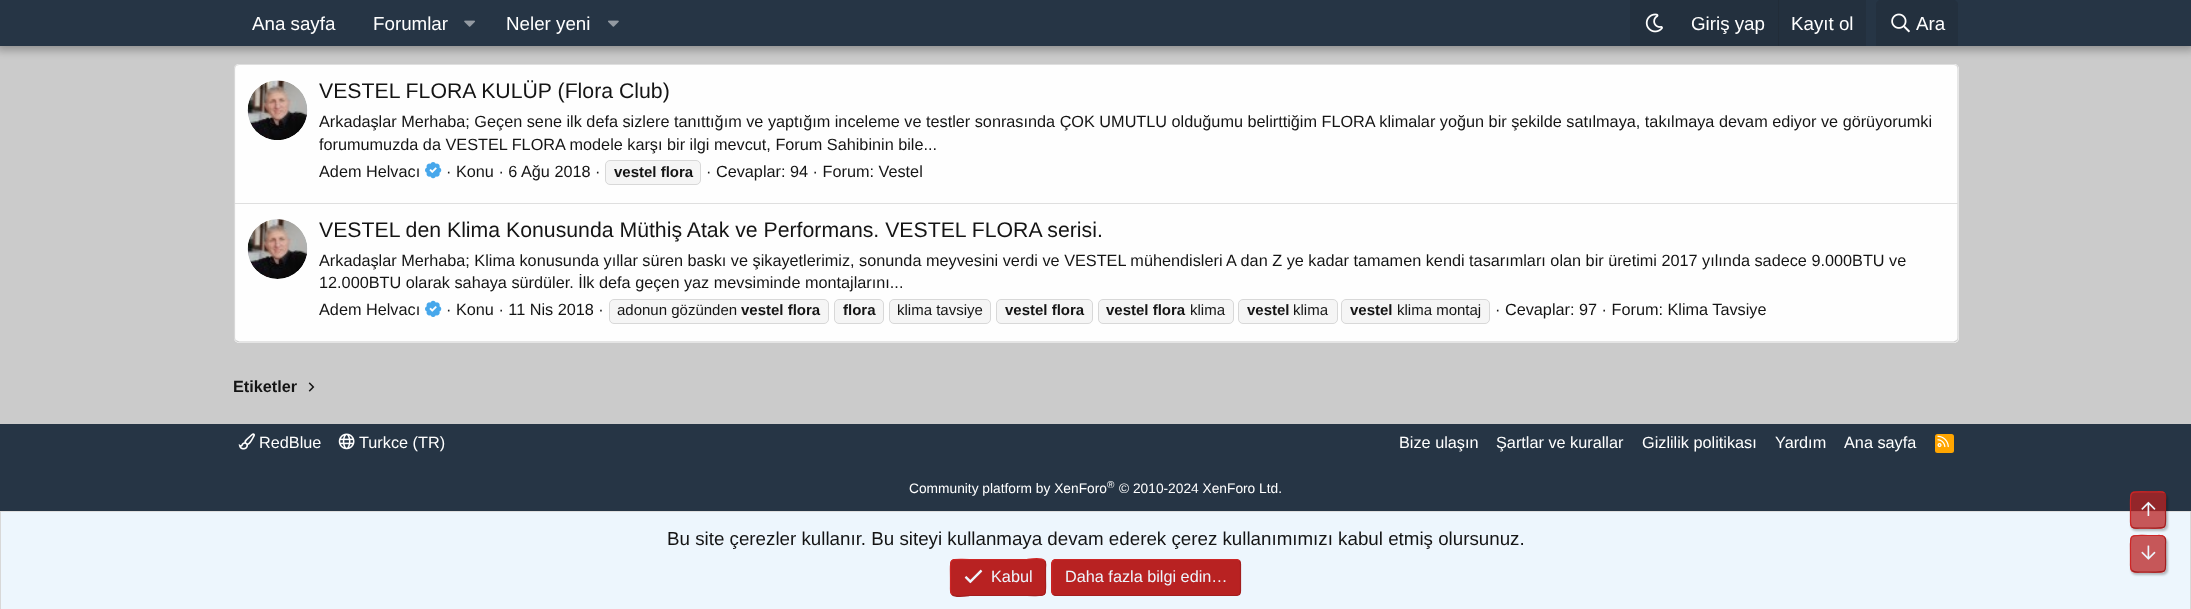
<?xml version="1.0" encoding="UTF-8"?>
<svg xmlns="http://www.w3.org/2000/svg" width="2191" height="609">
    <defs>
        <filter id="blur1" x="-50%" y="-200%" width="200%" height="500%"><feGaussianBlur stdDeviation="5"/></filter>
        <clipPath id="clip1"><path d="M 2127 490 H 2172 V 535 H 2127 Z M 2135 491 H 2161 C 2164 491 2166 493 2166 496 V 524 C 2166 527 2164 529 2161 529 H 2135 C 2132 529 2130 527 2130 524 V 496 C 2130 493 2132 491 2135 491 Z" clip-rule="evenodd"/></clipPath>
        <filter id="blur2" x="-50%" y="-200%" width="200%" height="500%"><feGaussianBlur stdDeviation="1"/></filter>
        <clipPath id="clip2"><path d="M 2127 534 H 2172 V 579 H 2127 Z M 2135 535 H 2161 C 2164 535 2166 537 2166 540 V 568 C 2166 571 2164 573 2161 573 H 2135 C 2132 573 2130 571 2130 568 V 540 C 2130 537 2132 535 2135 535 Z" clip-rule="evenodd"/></clipPath>
    </defs>
    <rect width="100%" height="100%" fill="#CBCBCB"/>
    <rect x="234" y="64" width="1725" height="279" rx="5" fill="#FEFEFE"/>
    <path d="M 235.5 65.5 L 239 64.5 H 1954 L 1957 65.5" fill="none" stroke="#DFDFDF" stroke-width="1.2"/>
    <path d="M 1957 65.5 C 1957.5 66.5 1958 67.5 1958 69 V 337.5 C 1958 338.5 1957.5 340 1957 340.5" fill="none" stroke="#D8D8D8" stroke-width="1.2"/>
    <path d="M 1957 340.5 L 1954 342 H 239 L 235.5 340.5" fill="none" stroke="#CBCBCB" stroke-width="1.2"/>
    <path d="M 235.5 340.5 C 235 340 234.5 338.5 234.5 337.5 V 69 C 234.5 67.5 235 66.5 235.5 65.5" fill="none" stroke="#D8D8D8" stroke-width="1.2"/>
    <rect x="-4" y="-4" width="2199" height="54" fill="#000000" fill-opacity="0.3" filter="url(#blur1)"/>
    <rect x="0" y="0" width="2191" height="46" fill="#263545"/>
    <text x="252" y="30" font-family="Liberation Sans" font-size="18.75" fill="#FFFFFF">Ana sayfa</text>
    <text x="373" y="30" font-family="Liberation Sans" font-size="18.75" fill="#FFFFFF">Forumlar</text>
    <image x="464" y="20" width="11" height="7" href="img_01.png"/>
    <text x="506" y="30" font-family="Liberation Sans" font-size="18.75" fill="#FFFFFF">Neler yeni</text>
    <image x="608" y="20" width="11" height="7" href="img_02.png"/>
    <rect x="1630" y="0" width="236" height="46" fill="#23303E"/>
    <image x="1645" y="13" width="18" height="20" href="img_03.png"/>
    <text x="1691" y="30" font-family="Liberation Sans" font-size="18.75" fill="#FFFFFF">Giriş yap</text>
    <rect x="1778" y="0" width="1" height="46" fill="#212C38"/>
    <text x="1791" y="30" font-family="Liberation Sans" font-size="18.75" fill="#FFFFFF">Kayıt ol</text>
    <path d="M 1881 0 H 1953 C 1956 0 1958 2 1958 5 V 46 H 1876 V 5 C 1876 2 1878 0 1881 0 Z" fill="#23303E"/>
    <image x="1891" y="13" width="19" height="20" href="img_04.png"/>
    <text x="1916" y="30" font-family="Liberation Sans" font-size="18.75" fill="#FFFFFF">Ara</text>
    <image x="247" y="80" width="61" height="60" href="img_05.png"/>
    <text x="319" y="98" font-family="Liberation Sans" font-size="21.25" fill="#141414">VESTEL FLORA KULÜP (Flora Club)</text>
    <text font-family="Liberation Sans" font-size="16.25" fill="#141414">
        <tspan x="319" y="127">Arkadaşlar Merhaba; Geçen sene ilk defa sizlere tanıttığım ve yaptığım inceleme ve testler sonrasında ÇOK UMUTLU olduğumu belirttiğim FLORA klimalar yoğun bir şekilde satılmaya, takılmaya devam ediyor ve görüyorumki</tspan>
        <tspan x="319" y="150">forumumuzda da VESTEL FLORA modele karşı bir ilgi mevcut, Forum Sahibinin bile...</tspan>
        <tspan x="319" y="177">Adem Helvacı</tspan>
    </text>
    <image x="425" y="162" width="17" height="17" href="img_06.png"/>
    <text x="446" y="177" font-family="Liberation Sans" font-size="16.25" fill="#141414">· Konu · 6 Ağu 2018 ·</text>
    <rect x="605.5" y="160.5" width="95" height="24" rx="4.5" fill="#F5F5F5" stroke="#D8D8D8"/>
    <text x="614" y="177" font-family="Liberation Sans" font-size="15" font-weight="700" fill="#141414">vestel flora</text>
    <text x="706" y="177" font-family="Liberation Sans" font-size="16.25" fill="#141414">· Cevaplar: 94 · Forum: Vestel</text>
    <rect x="235" y="203" width="1723" height="1" fill="#DFDFDF"/>
    <image x="247" y="219" width="61" height="60" href="img_07.png"/>
    <text x="319" y="237" font-family="Liberation Sans" font-size="21.25" fill="#141414">VESTEL den Klima Konusunda Müthiş Atak ve Performans. VESTEL FLORA serisi.</text>
    <text font-family="Liberation Sans" font-size="16.25" fill="#141414">
        <tspan x="319" y="266">Arkadaşlar Merhaba; Klima konusunda yıllar süren baskı ve şikayetlerimiz, sonunda meyvesini verdi ve VESTEL mühendisleri A dan Z ye kadar tamamen kendi tasarımları olan bir üretimi 2017 yılında sadece 9.000BTU ve</tspan>
        <tspan x="319" y="288">12.000BTU olarak sahaya sürdüler. İlk defa geçen yaz mevsiminde montajlarını...</tspan>
        <tspan x="319" y="315">Adem Helvacı</tspan>
    </text>
    <image x="425" y="300" width="17" height="17" href="img_08.png"/>
    <text x="446" y="315" font-family="Liberation Sans" font-size="16.25" fill="#141414">· Konu · 11 Nis 2018 ·</text>
    <rect x="609.5" y="299.5" width="219" height="24" rx="4.5" fill="#F5F5F5" stroke="#D8D8D8"/>
    <text x="617" y="315" font-family="Liberation Sans" font-size="15" fill="#141414">adonun gözünden</text>
    <text x="741" y="315" font-family="Liberation Sans" font-size="15" font-weight="700" fill="#141414">vestel flora</text>
    <rect x="834.5" y="299.5" width="49" height="24" rx="4.5" fill="#F5F5F5" stroke="#D8D8D8"/>
    <text x="843" y="315" font-family="Liberation Sans" font-size="15" font-weight="700" fill="#141414">flora</text>
    <rect x="889.5" y="299.5" width="101" height="24" rx="4.5" fill="#F5F5F5" stroke="#D8D8D8"/>
    <text x="897" y="315" font-family="Liberation Sans" font-size="15" fill="#141414">klima tavsiye</text>
    <rect x="996.5" y="299.5" width="96" height="24" rx="4.5" fill="#F5F5F5" stroke="#D8D8D8"/>
    <text x="1005" y="315" font-family="Liberation Sans" font-size="15" font-weight="700" fill="#141414">vestel flora</text>
    <rect x="1098.5" y="299.5" width="135" height="24" rx="4.5" fill="#F5F5F5" stroke="#D8D8D8"/>
    <text x="1106" y="315" font-family="Liberation Sans" font-size="15" font-weight="700" fill="#141414">vestel flora</text>
    <text x="1190" y="315" font-family="Liberation Sans" font-size="15" fill="#141414">klima</text>
    <rect x="1238.5" y="299.5" width="99" height="24" rx="4.5" fill="#F5F5F5" stroke="#D8D8D8"/>
    <text x="1247" y="315" font-family="Liberation Sans" font-size="15" font-weight="700" fill="#141414">vestel</text>
    <text x="1293" y="315" font-family="Liberation Sans" font-size="15" fill="#141414">klima</text>
    <rect x="1341.5" y="299.5" width="148" height="24" rx="4.5" fill="#F5F5F5" stroke="#D8D8D8"/>
    <text x="1350" y="315" font-family="Liberation Sans" font-size="15" font-weight="700" fill="#141414">vestel</text>
    <text x="1397" y="315" font-family="Liberation Sans" font-size="15" fill="#141414">klima montaj</text>
    <text x="1495" y="315" font-family="Liberation Sans" font-size="16.25" fill="#141414">· Cevaplar: 97 · Forum: Klima Tavsiye</text>
    <text x="233" y="392" font-family="Liberation Sans" font-size="16.25" font-weight="700" fill="#141414">Etiketler</text>
    <image x="308" y="382" width="7" height="10" href="img_09.png"/>
    <rect x="0" y="424" width="2191" height="87" fill="#263545"/>
    <image x="238" y="433" width="17" height="17" href="img_10.png"/>
    <text x="259" y="448" font-family="Liberation Sans" font-size="16.25" fill="#FFFFFF">RedBlue</text>
    <image x="338" y="433" width="17" height="17" href="img_11.png"/>
    <text x="359" y="448" font-family="Liberation Sans" font-size="16.25" fill="#FFFFFF">Turkce (TR)</text>
    <text x="1399" y="448" font-family="Liberation Sans" font-size="16.25" fill="#FFFFFF">Bize ulaşın</text>
    <text x="1496" y="448" font-family="Liberation Sans" font-size="16.25" fill="#FFFFFF">Şartlar ve kurallar</text>
    <text x="1642" y="448" font-family="Liberation Sans" font-size="16.25" fill="#FFFFFF">Gizlilik politikası</text>
    <text x="1775" y="448" font-family="Liberation Sans" font-size="16.25" fill="#FFFFFF">Yardım</text>
    <text x="1844" y="448" font-family="Liberation Sans" font-size="16.25" fill="#FFFFFF">Ana sayfa</text>
    <rect x="1935" y="434" width="19" height="19" rx="2.5" fill="#FFA500"/>
    <image x="1937" y="435" width="12" height="13" href="img_12.png"/>
    <text x="909" y="493" font-family="Liberation Sans" font-size="13.75" fill="#FFFFFF">Community platform by XenForo</text>
    <text x="1107" y="488" font-family="Liberation Sans" font-size="10" fill="#FFFFFF">®</text>
    <text x="1119" y="493" font-family="Liberation Sans" font-size="13.75" fill="#FFFFFF">© 2010-2024 XenForo Ltd.</text>
    <rect x="1" y="512" width="2189" height="97" fill="#EDF6FD"/>
    <rect x="0" y="511" width="2191" height="1" fill="#DFDFDF"/>
    <rect x="2190" y="511" width="1" height="98" fill="#D8D8D8"/>
    <rect x="0" y="511" width="1" height="98" fill="#D8D8D8"/>
    <text x="667" y="545" font-family="Liberation Sans" font-size="18.75" fill="#141414">Bu site çerezler kullanır. Bu siteyi kullanmaya devam ederek çerez kullanımımızı kabul etmiş olursunuz.</text>
    <rect x="950" y="559" width="96" height="37" rx="5" fill="#B82222"/>
    <path d="M 1044.5 560.5 C 1046.5 562.5 1045.5 566 1045.5 568.5 V 577.5 C 1045.5 598.5 1048.5 595.5 1027 595.5 H 969.5 C 969 595.5 955.5 598 952 594.5" fill="none" stroke="#A21E1E" stroke-width="1.2"/>
    <path d="M 952 594.5 C 950 592.5 950.5 589 950.5 586.5 V 577.5 C 950.5 556.5 947.5 559.5 969.5 559.5 H 1027 C 1027.5 559.5 1041 557 1044.5 560.5" fill="none" stroke="#CE2626" stroke-width="1.2"/>
    <image x="964" y="569" width="19" height="15" href="img_13.png"/>
    <text x="991" y="582" font-family="Liberation Sans" font-size="16.25" fill="#EDF6FD">Kabul</text>
    <rect x="1051" y="559" width="190" height="37" rx="5" fill="#B82222"/>
    <path d="M 1239.5 560.5 C 1240 561.5 1240.5 562.5 1240.5 564 V 591 C 1240.5 592.5 1240 593.5 1239.5 594.5 C 1238.5 595 1237.5 595.5 1236 595.5 H 1056 C 1055 595.5 1054 595 1053 594.5" fill="none" stroke="#A21E1E" stroke-width="1.2"/>
    <path d="M 1053 594.5 C 1052.5 593.5 1052 592.5 1052 591 V 564 C 1052 562.5 1052.5 561.5 1053 560.5 C 1054 560 1055 559.5 1056 559.5 H 1236 C 1237.5 559.5 1238.5 560 1239.5 560.5" fill="none" stroke="#CE2626" stroke-width="1.2"/>
    <text x="1065" y="582" font-family="Liberation Sans" font-size="16.25" fill="#EDF6FD">Daha fazla bilgi edin…</text>
    <g clip-path="url(#clip1)">
        <rect x="2131" y="494" width="37" height="37" rx="5" fill="#000000" fill-opacity="0.25" filter="url(#blur2)"/>
    </g>
    <rect x="2130" y="491" width="36" height="38" rx="5" fill="#B82222" fill-opacity="0.75"/>
    <path d="M 2164.5 493 C 2166.5 495 2165.5 498.5 2165.5 501 V 510 C 2165.5 530.5 2168.5 528 2148 528 H 2139.5 C 2137 528 2134 529 2132 527" fill="none" stroke="#A21E1E" stroke-width="1.2"/>
    <path d="M 2132 527 C 2130 525 2130.5 521.5 2130.5 519 V 510 C 2130.5 489.5 2128 492 2148 492 H 2157 C 2159 492 2162.5 491 2164.5 493" fill="none" stroke="#CE2626" stroke-width="1.2"/>
    <image x="2141" y="501" width="15" height="15" href="img_14.png"/>
    <g clip-path="url(#clip2)">
        <rect x="2131" y="538" width="37" height="37" rx="5" fill="#000000" fill-opacity="0.25" filter="url(#blur2)"/>
    </g>
    <rect x="2130" y="535" width="36" height="38" rx="5" fill="#B82222" fill-opacity="0.75"/>
    <path d="M 2164.5 537 C 2166.5 539 2165.5 542 2165.5 544.5 V 554 C 2165.5 574.5 2168.5 572 2148 572 H 2139.5 C 2137 572 2134 572.5 2132 570.5" fill="none" stroke="#A21E1E" stroke-width="1.2"/>
    <path d="M 2132 570.5 C 2130 568.5 2130.5 565.5 2130.5 563 V 554 C 2130.5 533 2128 535.5 2148 535.5 H 2157 C 2159 535.5 2162.5 535 2164.5 537" fill="none" stroke="#CE2626" stroke-width="1.2"/>
    <image x="2141" y="545" width="15" height="15" href="img_15.png"/>
</svg>
